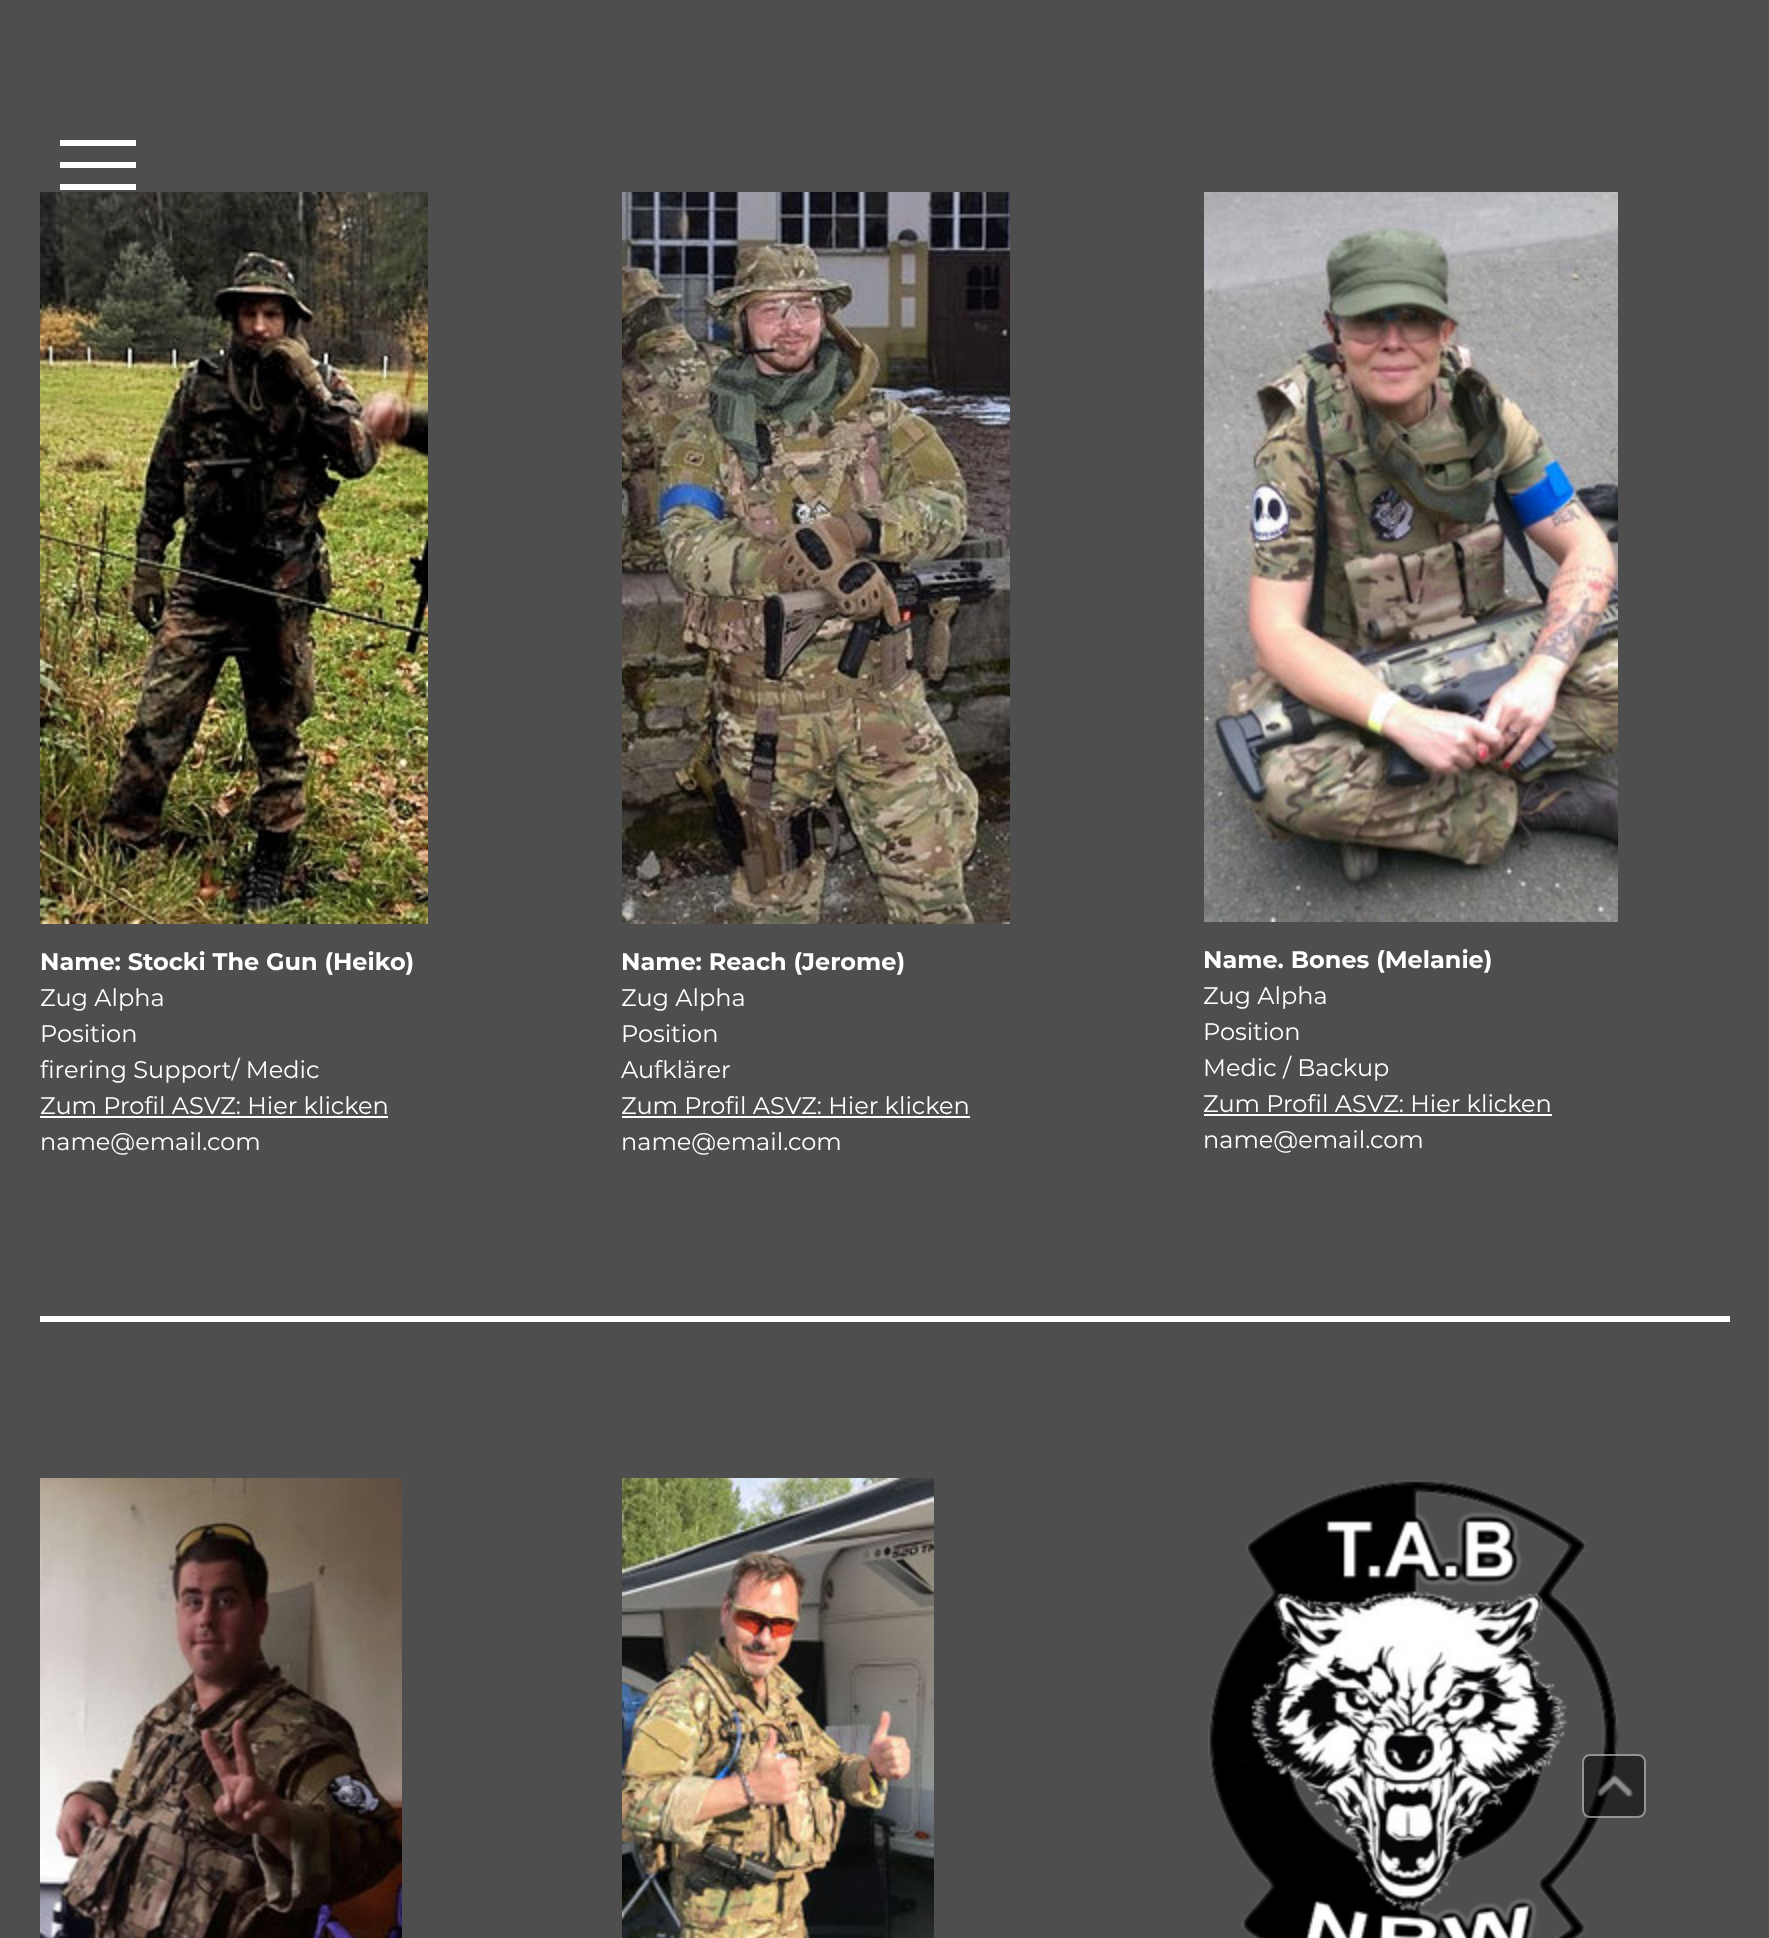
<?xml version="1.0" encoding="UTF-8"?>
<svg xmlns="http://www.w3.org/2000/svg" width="1769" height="1938">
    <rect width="100%" height="100%" fill="#4E4E4E"/>
    <rect x="60" y="162" width="76" height="6" fill="#FFFFFF"/>
    <rect x="60" y="140" width="76" height="6" fill="#FFFFFF"/>
    <rect x="60" y="184" width="76" height="6" fill="#FFFFFF"/>
    <image x="40" y="192" width="388" height="732" href="img_01.png"/>
    <text x="40" y="970" font-family="Montserrat" font-size="24" font-weight="700" fill="#FFFFFF">Name: Stocki The Gun (Heiko)</text>
    <text font-family="Montserrat" font-size="24" font-weight="100" fill="#FFFFFF">
        <tspan x="40" y="1006">Zug Alpha</tspan>
        <tspan x="40" y="1042">Position</tspan>
        <tspan x="40" y="1078">firering Support/ Medic</tspan>
        <tspan x="40" y="1114">Zum Profil ASVZ: Hier klicken</tspan>
    </text>
    <rect x="40" y="1116" width="348" height="2" fill="#FFFFFF"/>
    <text x="40" y="1150" font-family="Montserrat" font-size="24" font-weight="100" fill="#FFFFFF">name@email.com</text>
    <image x="622" y="192" width="388" height="732" href="img_02.png"/>
    <text x="621" y="970" font-family="Montserrat" font-size="24" font-weight="700" fill="#FFFFFF">Name: Reach (Jerome)</text>
    <text font-family="Montserrat" font-size="24" font-weight="100" fill="#FFFFFF">
        <tspan x="621" y="1006">Zug Alpha</tspan>
        <tspan x="621" y="1042">Position</tspan>
        <tspan x="621" y="1078">Aufklärer</tspan>
        <tspan x="621" y="1114">Zum Profil ASVZ: Hier klicken</tspan>
    </text>
    <rect x="622" y="1116" width="348" height="2" fill="#FFFFFF"/>
    <text x="621" y="1150" font-family="Montserrat" font-size="24" font-weight="100" fill="#FFFFFF">name@email.com</text>
    <image x="1204" y="192" width="414" height="730" href="img_03.png"/>
    <text x="1203" y="968" font-family="Montserrat" font-size="24" font-weight="700" fill="#FFFFFF">Name. Bones (Melanie)</text>
    <text font-family="Montserrat" font-size="24" font-weight="100" fill="#FFFFFF">
        <tspan x="1203" y="1004">Zug Alpha</tspan>
        <tspan x="1203" y="1040">Position</tspan>
        <tspan x="1203" y="1076">Medic / Backup</tspan>
        <tspan x="1203" y="1112">Zum Profil ASVZ: Hier klicken</tspan>
    </text>
    <rect x="1204" y="1114" width="348" height="2" fill="#FFFFFF"/>
    <text x="1203" y="1148" font-family="Montserrat" font-size="24" font-weight="100" fill="#FFFFFF">name@email.com</text>
    <rect x="40" y="1316" width="1690" height="2" fill="#FFFFFF"/>
    <rect x="1728" y="1316" width="2" height="6" fill="#FFFFFF"/>
    <rect x="40" y="1318" width="1690" height="4" fill="#FFFFFF"/>
    <image x="40" y="1478" width="362" height="460" href="img_04.png"/>
    <image x="622" y="1478" width="312" height="460" href="img_05.png"/>
    <image x="1207" y="1480" width="412" height="458" href="img_06.png"/>
    <rect x="1582" y="1754" width="64" height="64" rx="8" fill="#000000" fill-opacity="0.5"/>
    <rect x="1583" y="1755" width="62" height="62" rx="7" fill="none" stroke="#FFFFFF" stroke-opacity="0.5" stroke-width="2"/>
    <image x="1597" y="1775" width="36" height="22" href="img_07.png"/>
</svg>
